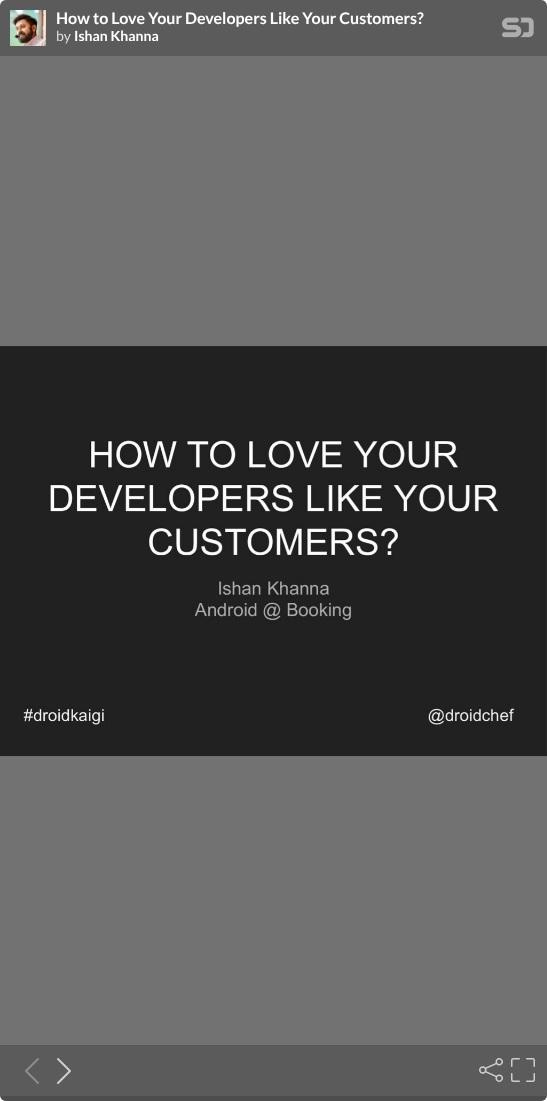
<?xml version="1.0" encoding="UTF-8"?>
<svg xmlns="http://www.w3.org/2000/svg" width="547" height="1101">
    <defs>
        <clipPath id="clip1"><rect x="0" y="0" width="547" height="1101" rx="6"/></clipPath>
    </defs>
    <rect width="100%" height="100%" fill="#FFFFFF"/>
    <rect x="0" y="0" width="547" height="1101" rx="6" fill="#727272"/>
    <image x="0" y="346" width="547" height="411" href="img_01.png"/>
    <path d="M 6 0 H 541 C 544.5 0 547 2.5 547 6 V 56 H 0 V 6 C 0 2.5 2.5 0 6 0 Z" fill="#000000" fill-opacity="0.2"/>
    <image x="10" y="10" width="36" height="36" href="img_02.png"/>
    <text x="56" y="24" font-family="Lato" font-size="16" font-weight="700" fill="#FFFFFF">How to Love Your Developers Like Your Customers?</text>
    <image x="502" y="17" width="32" height="21" href="img_03.png"/>
    <text x="56" y="41" font-family="Lato" font-size="14" fill="#DEDEDE">by</text>
    <text x="74" y="41" font-family="Lato" font-size="14" font-weight="700" fill="#FFFFFF">Ishan Khanna</text>
    <path d="M 0 1045 H 547 V 1095 C 547 1098.5 544.5 1101 541 1101 H 6 C 2.5 1101 0 1098.5 0 1095 Z" fill="#000000" fill-opacity="0.2"/>
    <image x="25" y="1058" width="14" height="26" href="img_04.png"/>
    <image x="57" y="1058" width="14" height="26" href="img_05.png"/>
    <image x="479" y="1058" width="24" height="24" href="img_06.png"/>
    <image x="511" y="1058" width="24" height="24" href="img_07.png"/>
    <g clip-path="url(#clip1)">
        <rect x="0" y="1096" width="547" height="5" fill="#000000" fill-opacity="0.15"/>
    </g>
</svg>
